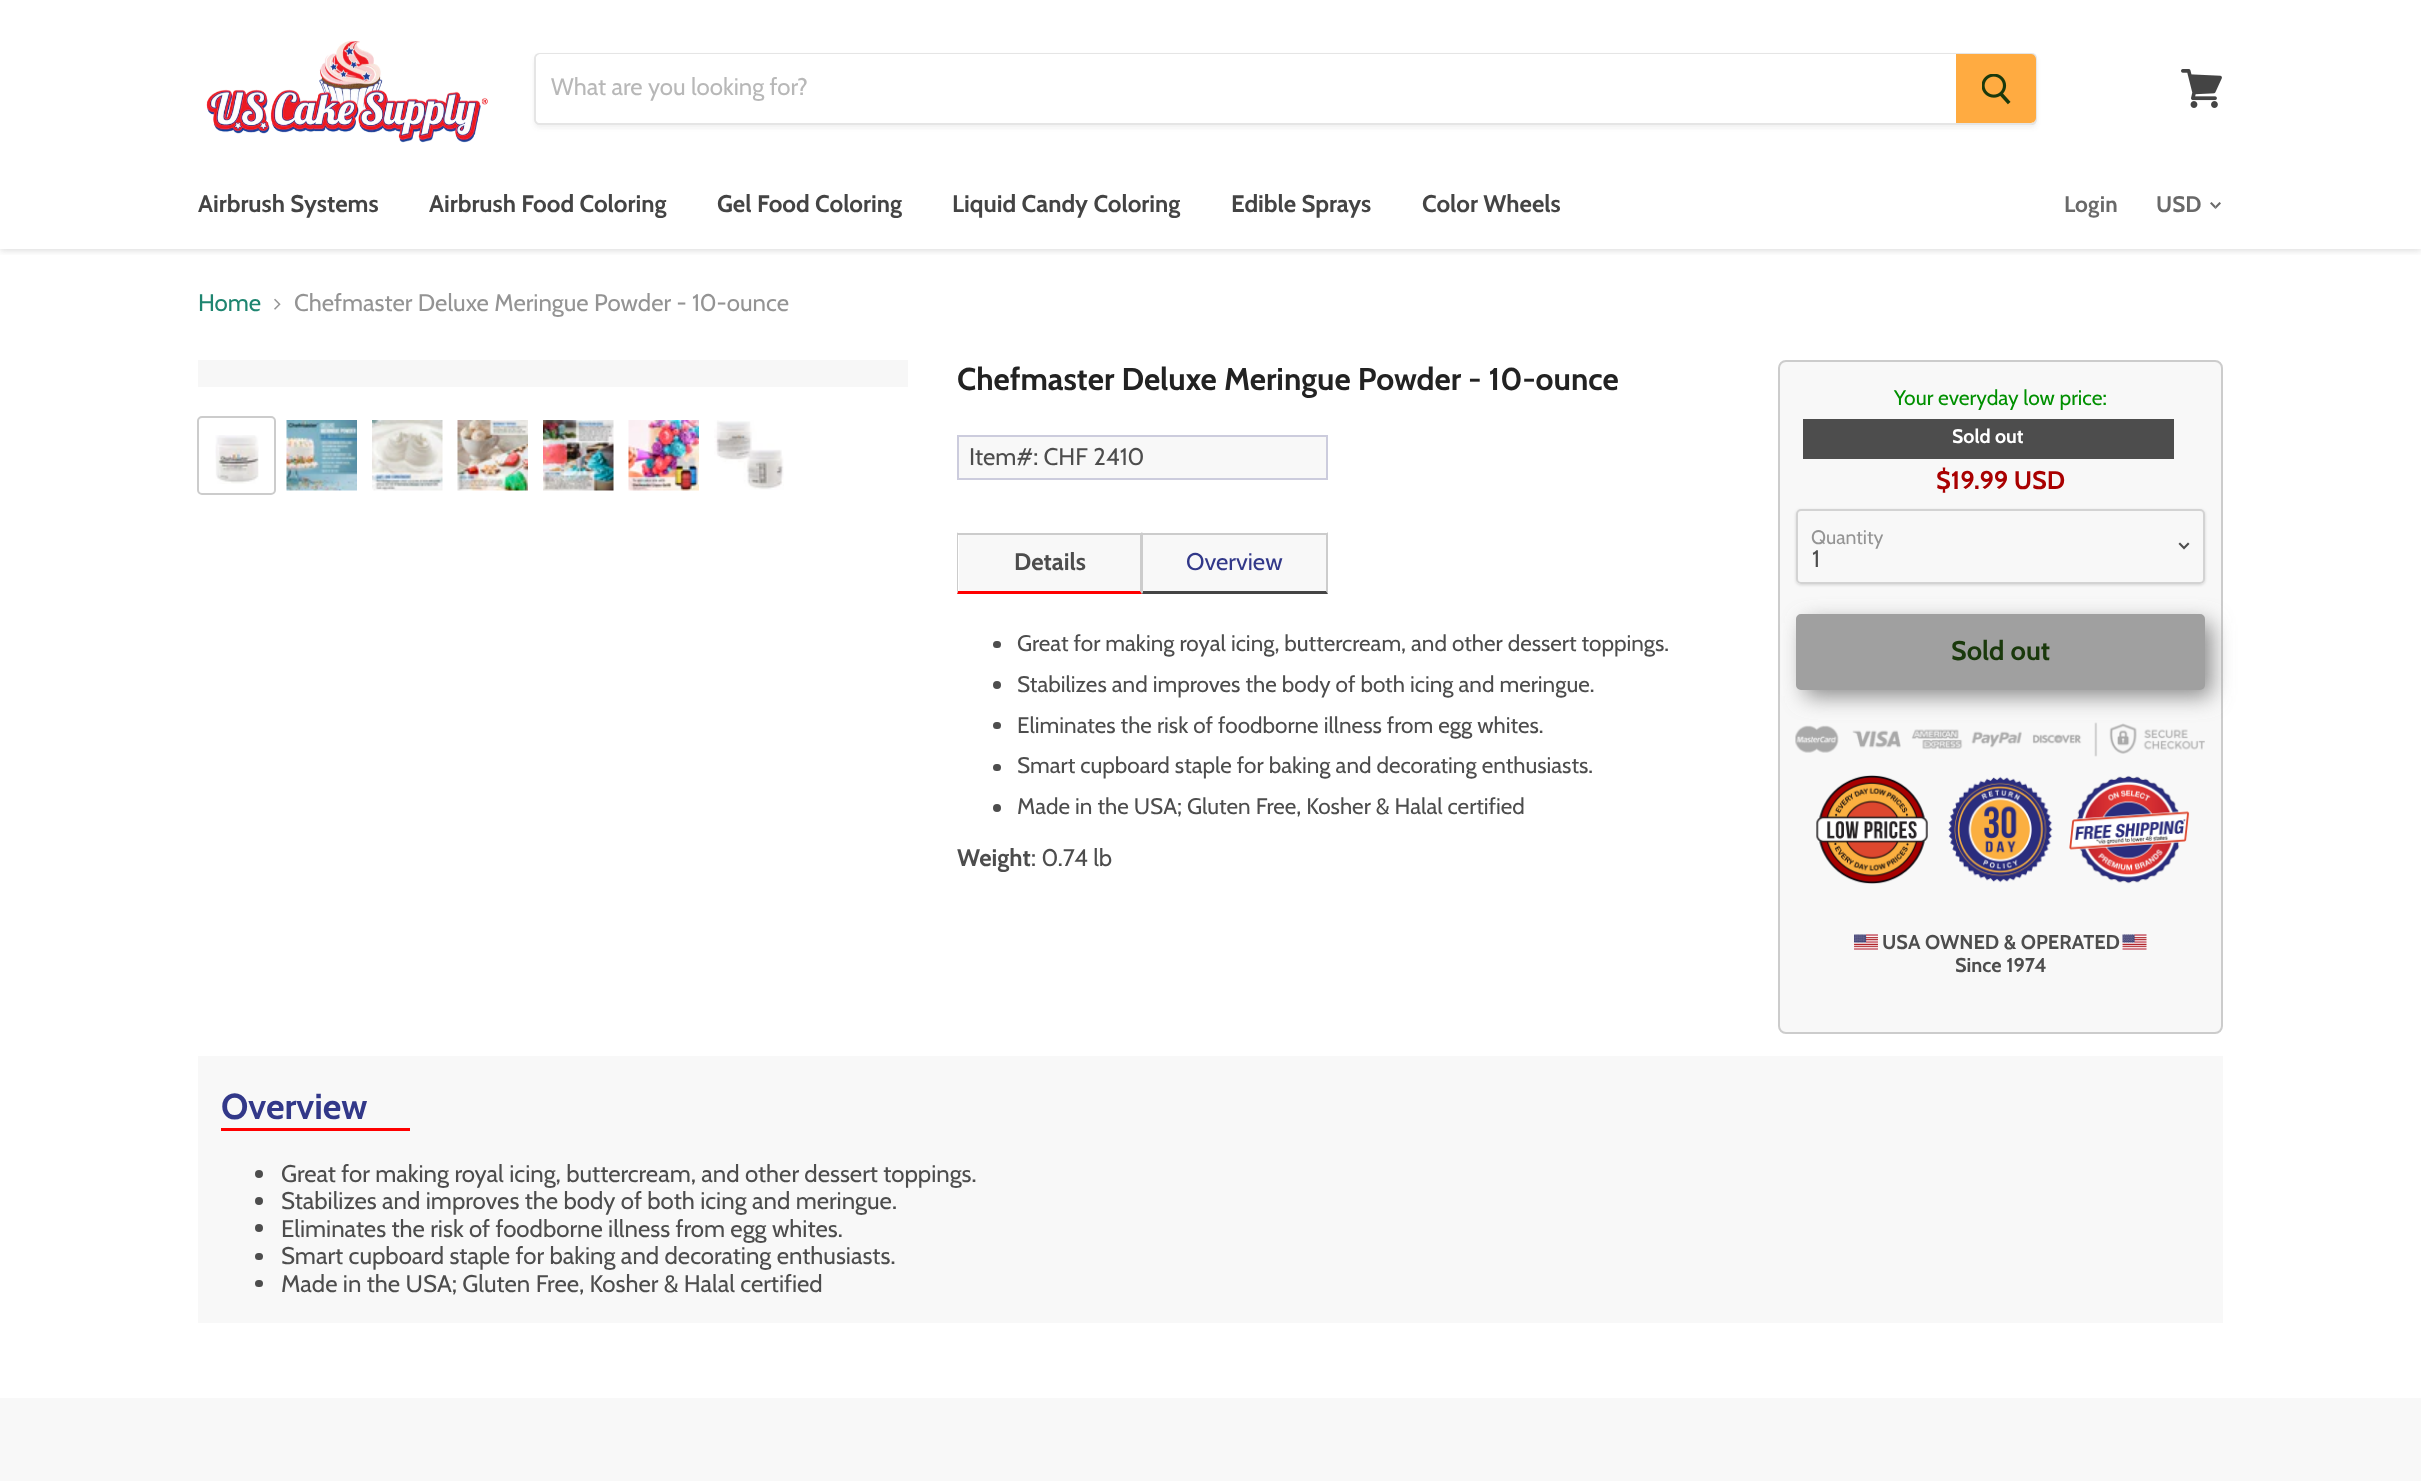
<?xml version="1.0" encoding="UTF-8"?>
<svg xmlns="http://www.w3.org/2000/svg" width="2421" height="1481">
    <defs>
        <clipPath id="clip1"><rect x="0" y="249" width="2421" height="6"/></clipPath>
        <filter id="blur1" x="-50%" y="-200%" width="200%" height="500%"><feGaussianBlur stdDeviation="3"/></filter>
        <clipPath id="clip2"><path d="M 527 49 H 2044 V 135 H 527 Z M 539 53 H 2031 C 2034.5 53 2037 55.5 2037 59 V 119 C 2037 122.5 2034.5 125 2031 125 H 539 C 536 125 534 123 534 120 V 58 C 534 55 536 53 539 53 Z" clip-rule="evenodd"/></clipPath>
        <filter id="blur2" x="-50%" y="-200%" width="200%" height="500%"><feGaussianBlur stdDeviation="2"/></filter>
        <clipPath id="clip3"><path d="M 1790 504 H 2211 V 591 H 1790 Z M 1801 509 H 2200 C 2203 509 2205 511 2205 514 V 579 C 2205 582 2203 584 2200 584 H 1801 C 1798 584 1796 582 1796 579 V 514 C 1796 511 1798 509 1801 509 Z" clip-rule="evenodd"/></clipPath>
        <filter id="blur3" x="-50%" y="-200%" width="200%" height="500%"><feGaussianBlur stdDeviation="1.5"/></filter>
        <filter id="blur4" x="-50%" y="-200%" width="200%" height="500%"><feGaussianBlur stdDeviation="11"/></filter>
    </defs>
    <rect width="100%" height="100%" fill="#FFFFFF"/>
    <g clip-path="url(#clip1)">
        <rect x="0" y="2" width="2421" height="249" fill="#7F7F7F" fill-opacity="0.25" filter="url(#blur1)"/>
    </g>
    <image x="206" y="40" width="282" height="103" href="img_01.png"/>
    <g clip-path="url(#clip2)">
        <rect x="534" y="56" width="1503" height="72" rx="6" fill="#7F7F7F" fill-opacity="0.11" filter="url(#blur2)"/>
    </g>
    <path d="M 539 54 H 2031 C 2034 54 2036 56 2036 59 V 119 C 2036 122 2034 124 2031 124 H 539 C 537 124 535 122 535 120 V 58 C 535 56 537 54 539 54 Z" fill="none" stroke="#7F7F7F" stroke-opacity="0.2" stroke-width="2"/>
    <path d="M 541 54 H 1956 V 123 H 541 C 538 123 536 121 536 118 V 59 C 536 56 538 54 541 54 Z" fill="#FFFFFF"/>
    <text x="551" y="95" font-family="Cabin" font-size="24" fill="#B8B8B8">What are you looking for?</text>
    <path d="M 1957 55 H 2031 C 2033 55 2035 57 2035 59 V 118 C 2035 120 2033 122 2031 122 H 1957 Z" fill="#FFAB41" stroke="#FFAB41" stroke-width="2"/>
    <image x="1982" y="74" width="29" height="31" href="img_02.png"/>
    <image x="2181" y="69" width="41" height="39" href="img_03.png"/>
    <text x="198" y="212" font-family="Cabin" font-size="24" font-weight="700" fill="#444444">Airbrush Systems</text>
    <text x="429" y="212" font-family="Cabin" font-size="24" font-weight="700" fill="#444444">Airbrush Food Coloring</text>
    <text x="717" y="212" font-family="Cabin" font-size="24" font-weight="700" fill="#444444">Gel Food Coloring</text>
    <text x="952" y="212" font-family="Cabin" font-size="24" font-weight="700" fill="#444444">Liquid Candy Coloring</text>
    <text x="1231" y="212" font-family="Cabin" font-size="24" font-weight="700" fill="#444444">Edible Sprays</text>
    <text x="1422" y="212" font-family="Cabin" font-size="24" font-weight="700" fill="#444444">Color Wheels</text>
    <text x="2064" y="212" font-family="Cabin" font-size="22.5" font-weight="700" fill="#696969">Login</text>
    <text x="2156" y="212" font-family="Cabin" font-size="22.5" font-weight="700" fill="#696969">USD</text>
    <image x="2210" y="202" width="11" height="7" href="img_04.png"/>
    <text x="198" y="311" font-family="Cabin" font-size="24" fill="#1E8570">Home</text>
    <image x="274" y="298" width="7" height="12" href="img_05.png"/>
    <text x="294" y="311" font-family="Cabin" font-size="24" fill="#949494">Chefmaster Deluxe Meringue Powder - 10-ounce</text>
    <rect x="198" y="360" width="710" height="27" fill="#F7F7F7"/>
    <rect x="198" y="417" width="77" height="77" rx="4" fill="none" stroke="#CCCCCC" stroke-width="2"/>
    <image x="215" y="435" width="44" height="49" href="img_06.png"/>
    <image x="286" y="420" width="71" height="71" href="img_07.png"/>
    <image x="372" y="420" width="71" height="71" href="img_08.png"/>
    <image x="457" y="420" width="71" height="71" href="img_09.png"/>
    <image x="543" y="420" width="71" height="71" href="img_10.png"/>
    <image x="628" y="420" width="71" height="71" href="img_11.png"/>
    <image x="714" y="420" width="70" height="70" href="img_12.png"/>
    <text x="957" y="390" font-family="Cabin" font-size="31.5" font-weight="700" fill="#222222">Chefmaster Deluxe Meringue Powder - 10-ounce</text>
    <rect x="958" y="436" width="369" height="43" fill="#F8F8F8" stroke="#CCCCDD" stroke-width="2"/>
    <text x="969" y="465" font-family="Cabin" font-size="24" fill="#4D4D4D">Item#: CHF 2410</text>
    <rect x="959" y="535" width="181" height="56" fill="#F8F8F8"/>
    <rect x="957" y="533" width="371" height="2" fill="#CCCCCC"/>
    <path d="M 1142 532 V 594 L 1140 591 V 534 Z" fill="#CCCCCC"/>
    <path d="M 1142 594 H 957 L 958 591 H 1140 Z" fill="#FF0000"/>
    <path d="M 957 594 V 532 L 958 534 V 591 Z" fill="#CCCCCC"/>
    <text x="1014" y="570" font-family="Cabin" font-size="24" font-weight="700" fill="#4D4D4D">Details</text>
    <rect x="1143" y="535" width="183" height="56" fill="#F8F8F8"/>
    <path d="M 1328 532 V 594 L 1326 591 V 534 Z" fill="#CCCCCC"/>
    <path d="M 1328 594 H 1142 L 1143 591 H 1326 Z" fill="#444444"/>
    <path d="M 1142 594 V 532 L 1143 534 V 591 Z" fill="#CCCCCC"/>
    <text x="1186" y="570" font-family="Cabin" font-size="24" fill="#323889">Overview</text>
    <rect x="993" y="641" width="8" height="7" rx="3.5" fill="#4D4D4D"/>
    <text x="1017" y="651" font-family="Cabin" font-size="22.5" fill="#4D4D4D">Great for making royal icing, buttercream, and other dessert toppings.</text>
    <circle cx="997" cy="685" r="4" fill="#4D4D4D"/>
    <text x="1017" y="692" font-family="Cabin" font-size="22.5" fill="#4D4D4D">Stabilizes and improves the body of both icing and meringue.</text>
    <rect x="993" y="722" width="8" height="7" rx="3.5" fill="#4D4D4D"/>
    <text x="1017" y="733" font-family="Cabin" font-size="22.5" fill="#4D4D4D">Eliminates the risk of foodborne illness from egg whites.</text>
    <rect x="993" y="764" width="8" height="7" rx="3.5" fill="#4D4D4D"/>
    <text x="1017" y="773" font-family="Cabin" font-size="22.5" fill="#4D4D4D">Smart cupboard staple for baking and decorating enthusiasts.</text>
    <circle cx="997" cy="808" r="4" fill="#4D4D4D"/>
    <text x="1017" y="814" font-family="Cabin" font-size="22.5" fill="#4D4D4D">Made in the USA; Gluten Free, Kosher &amp; Halal certified</text>
    <text x="957" y="866" font-family="Cabin" font-size="24" font-weight="700" fill="#4D4D4D">Weight</text>
    <text x="1031" y="866" font-family="Cabin" font-size="24" fill="#4D4D4D">: 0.74 lb</text>
    <rect x="1779" y="361" width="443" height="672" rx="7" fill="#F8F8F8" stroke="#CCCCCC" stroke-width="2"/>
    <text x="1894" y="405" font-family="Cabin" font-size="21" fill="#009000">Your everyday low price:</text>
    <rect x="1803" y="419" width="371" height="40" fill="#4D4D4D"/>
    <text x="1952" y="443" font-family="Cabin" font-size="19.5" font-weight="700" fill="#FFFFFF">Sold out</text>
    <text x="1936" y="489" font-family="Cabin" font-size="25.5" font-weight="700" fill="#A90000">$19.99 USD</text>
    <g clip-path="url(#clip3)">
        <rect x="1796" y="510" width="409" height="75" rx="5" fill="#000000" fill-opacity="0.15" filter="url(#blur3)"/>
    </g>
    <rect x="1797" y="510" width="407" height="73" rx="4" fill="none" stroke="#7F7F7F" stroke-opacity="0.3" stroke-width="2"/>
    <text x="1811" y="544" font-family="Cabin" font-size="19.5" fill="#949494">Quantity</text>
    <image x="2178" y="542" width="12" height="8" href="img_13.png"/>
    <text x="1812" y="567" font-family="Cabin" font-size="24" fill="#4D4D4D">1</text>
    <image x="1795" y="722" width="410" height="35" href="img_14.png"/>
    <rect x="1805" y="623" width="406" height="73" rx="3" fill="#888888" filter="url(#blur4)"/>
    <rect x="1797" y="615" width="407" height="74" rx="4" fill="#A0A0A0" stroke="#A0A0A0" stroke-width="2"/>
    <text x="1951" y="660" font-family="Cabin" font-size="27" font-weight="700" fill="#1A390C">Sold out</text>
    <image x="1816" y="775" width="112" height="109" href="img_15.png"/>
    <image x="1948" y="776" width="105" height="107" href="img_16.png"/>
    <image x="2069" y="775" width="121" height="109" href="img_17.png"/>
    <image x="1854" y="934" width="24" height="16" href="img_18.png"/>
    <text x="1882" y="949" font-family="Cabin" font-size="20" font-weight="700" fill="#4D4D4D">USA OWNED &amp; OPERATED</text>
    <image x="2122" y="934" width="25" height="16" href="img_19.png"/>
    <text x="1955" y="972" font-family="Cabin" font-size="20" font-weight="700" fill="#4D4D4D">Since 1974</text>
    <rect x="198" y="1056" width="2025" height="267" fill="#F8F8F8"/>
    <rect x="221" y="1128" width="189" height="3" fill="#FF0000"/>
    <text x="221" y="1119" font-family="Cabin" font-size="36" font-weight="700" fill="#323889">Overview</text>
    <circle cx="259" cy="1174" r="4" fill="#4D4D4D"/>
    <text x="281" y="1182" font-family="Cabin" font-size="24" fill="#4D4D4D">Great for making royal icing, buttercream, and other dessert toppings.</text>
    <circle cx="259" cy="1201" r="4" fill="#4D4D4D"/>
    <text x="281" y="1209" font-family="Cabin" font-size="24" fill="#4D4D4D">Stabilizes and improves the body of both icing and meringue.</text>
    <circle cx="259" cy="1228" r="4" fill="#4D4D4D"/>
    <text x="281" y="1237" font-family="Cabin" font-size="24" fill="#4D4D4D">Eliminates the risk of foodborne illness from egg whites.</text>
    <rect x="255" y="1253" width="8" height="7" rx="3.5" fill="#4D4D4D"/>
    <text x="281" y="1264" font-family="Cabin" font-size="24" fill="#4D4D4D">Smart cupboard staple for baking and decorating enthusiasts.</text>
    <rect x="255" y="1280" width="8" height="7" rx="3.5" fill="#4D4D4D"/>
    <text x="281" y="1292" font-family="Cabin" font-size="24" fill="#4D4D4D">Made in the USA; Gluten Free, Kosher &amp; Halal certified</text>
    <rect x="0" y="1398" width="2421" height="83" fill="#F8F8F8"/>
</svg>
